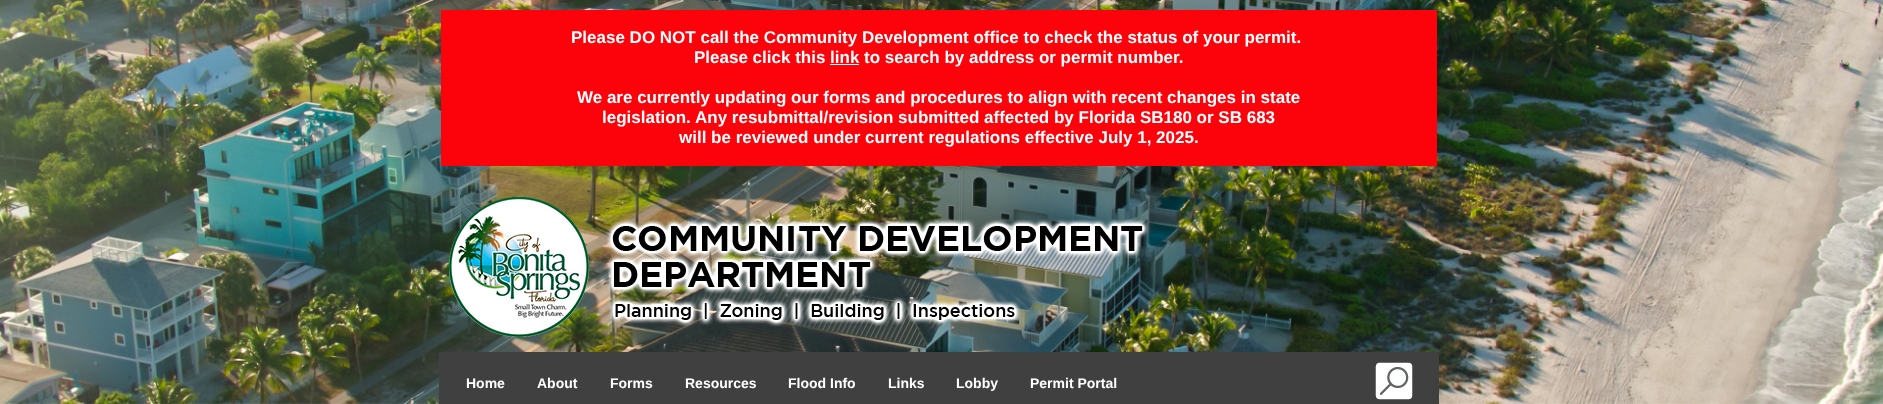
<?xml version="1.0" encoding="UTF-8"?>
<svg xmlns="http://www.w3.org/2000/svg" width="1883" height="404">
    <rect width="100%" height="100%" fill="#FFFFFF"/>
    <image x="0" y="0" width="1883" height="404" href="img_01.png"/>
    <rect x="441" y="10" width="996" height="156" fill="#FC030B"/>
    <text x="571" y="43" font-family="Liberation Sans" font-size="17" font-weight="700" fill="#FFFFFF">Please DO NOT call the Community Development office to check the status of your permit.</text>
    <text x="694" y="63" font-family="Liberation Sans" font-size="17" font-weight="700" fill="#FFFFFF">Please click this link to search by address or permit number.</text>
    <rect x="830" y="64" width="29" height="1" fill="#FFFFFF"/>
    <text x="577" y="103" font-family="Liberation Sans" font-size="17" font-weight="700" fill="#FFFFFF">We are currently updating our forms and procedures to align with recent changes in state</text>
    <text x="602" y="123" font-family="Liberation Sans" font-size="17" font-weight="700" fill="#FFFFFF">legislation.</text>
    <text x="695" y="123" font-family="Liberation Sans" font-size="17" font-weight="700" fill="#FFFFFF">Any resubmittal/revision submitted affected by Florida SB180 or SB 683</text>
    <text x="679" y="143" font-family="Liberation Sans" font-size="17" font-weight="700" fill="#FFFFFF">will be reviewed under current regulations effective July 1, 2025.</text>
    <image x="449" y="197" width="700" height="140" href="img_02.png"/>
    <rect x="439" y="352" width="1000" height="52" fill="#404040"/>
    <text x="466" y="388" font-family="Liberation Sans" font-size="14" font-weight="700" fill="#FFFFFF">Home</text>
    <text x="537" y="388" font-family="Liberation Sans" font-size="14" font-weight="700" fill="#FFFFFF">About</text>
    <text x="610" y="388" font-family="Liberation Sans" font-size="14" font-weight="700" fill="#FFFFFF">Forms</text>
    <text x="685" y="388" font-family="Liberation Sans" font-size="14" font-weight="700" fill="#FFFFFF">Resources</text>
    <text x="788" y="388" font-family="Liberation Sans" font-size="14" font-weight="700" fill="#FFFFFF">Flood Info</text>
    <text x="888" y="388" font-family="Liberation Sans" font-size="14" font-weight="700" fill="#FFFFFF">Links</text>
    <text x="956" y="388" font-family="Liberation Sans" font-size="14" font-weight="700" fill="#FFFFFF">Lobby</text>
    <text x="1030" y="388" font-family="Liberation Sans" font-size="14" font-weight="700" fill="#FFFFFF">Permit Portal</text>
    <image x="1375" y="362" width="38" height="38" href="img_03.png"/>
</svg>
